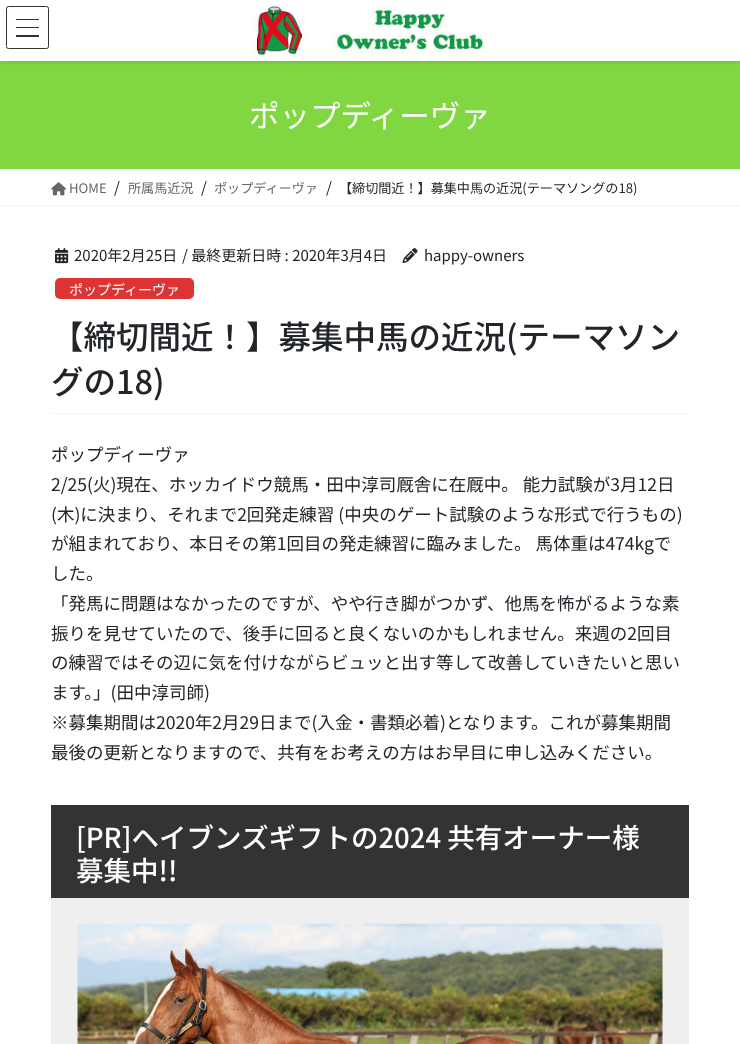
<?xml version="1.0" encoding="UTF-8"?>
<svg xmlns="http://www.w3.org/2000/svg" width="740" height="1044">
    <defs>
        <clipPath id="clip1"><rect x="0" y="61" width="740" height="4"/></clipPath>
        <filter id="blur1" x="-50%" y="-200%" width="200%" height="500%"><feGaussianBlur stdDeviation="2"/></filter>
    </defs>
    <rect width="100%" height="100%" fill="#FFFFFF"/>
    <rect x="0" y="61" width="740" height="108" fill="#81D742"/>
    <g clip-path="url(#clip1)">
        <rect x="0" y="1" width="740" height="62" fill="#000000" fill-opacity="0.1" filter="url(#blur1)"/>
    </g>
    <image x="254" y="6" width="232" height="50" href="img_01.png"/>
    <rect x="16" y="19" width="23" height="1" fill="#333333"/>
    <rect x="16" y="27" width="23" height="1" fill="#333333"/>
    <rect x="16" y="35" width="23" height="2" fill="#333333"/>
    <rect x="6.5" y="6.5" width="42" height="42" rx="2" fill="none" stroke="#333333"/>
    <text x="249" y="127" font-family="Noto Sans JP" font-size="30.5" fill="#FFFFFF">ポップディーヴァ</text>
    <rect x="0" y="205" width="740" height="1" fill="#F2F2F2"/>
    <image x="51" y="182" width="15" height="14" href="img_02.png"/>
    <text x="69" y="193" font-family="Noto Sans JP" font-size="13.1" fill="#666666">HOME</text>
    <text x="114" y="193" font-family="Noto Sans JP" font-size="15" fill="#212529">/</text>
    <text x="128" y="193" font-family="Noto Sans JP" font-size="13.1" fill="#666666">所属馬近況</text>
    <text x="201" y="193" font-family="Noto Sans JP" font-size="15" fill="#212529">/</text>
    <text x="214" y="193" font-family="Noto Sans JP" font-size="13.1" fill="#666666">ポップディーヴァ</text>
    <text x="326" y="193" font-family="Noto Sans JP" font-size="15" fill="#212529">/</text>
    <text x="339" y="193" font-family="Noto Sans JP" font-size="13.1" fill="#212529">【締切間近！】募集中馬の近況(テーマソングの18)</text>
    <rect x="51" y="413" width="638" height="1" fill="#F2F2F2"/>
    <image x="55" y="248" width="14" height="16" href="img_03.png"/>
    <text x="74" y="261" font-family="Noto Sans JP" font-size="15" fill="#212529">2020年2月25日</text>
    <text x="182" y="261" font-family="Noto Sans JP" font-size="15" fill="#212529">/ 最終更新日時 : 2020年3月4日</text>
    <image x="402" y="248" width="16" height="16" href="img_04.png"/>
    <text x="424" y="261" font-family="Noto Sans JP" font-size="15" fill="#212529">happy-owners</text>
    <rect x="55" y="278" width="139" height="21" rx="5" fill="#DD3333"/>
    <text x="69" y="295" font-family="Noto Sans JP" font-size="14" fill="#FFFFFF">ポップディーヴァ</text>
    <text font-family="Noto Sans JP" font-size="32.5" font-weight="500" fill="#212529">
        <tspan x="51" y="349">【締切間近！】募集中馬の近況(テーマソン</tspan>
        <tspan x="51" y="394">グの18)</tspan>
    </text>
    <text font-family="Noto Sans JP" font-size="17.5" fill="#212529">
        <tspan x="51" y="461">ポップディーヴァ</tspan>
        <tspan x="51" y="491">2/25(火)現在、ホッカイドウ競馬・田中淳司厩舎に在厩中。 能力試験が3月12日</tspan>
        <tspan x="51" y="521">(木)に決まり、それまで2回発走練習 (中央のゲート試験のような形式で行うもの)</tspan>
        <tspan x="51" y="550">が組まれており、本日その第1回目の発走練習に臨みました。 馬体重は474kgで</tspan>
        <tspan x="51" y="580">した。</tspan>
        <tspan x="51" y="610">「発馬に問題はなかったのですが、やや行き脚がつかず、他馬を怖がるような素</tspan>
        <tspan x="51" y="640">振りを見せていたので、後手に回ると良くないのかもしれません。来週の2回目</tspan>
        <tspan x="51" y="669">の練習ではその辺に気を付けながらビュッと出す等して改善していきたいと思い</tspan>
        <tspan x="51" y="699">ます。」(田中淳司師)</tspan>
        <tspan x="51" y="729">※募集期間は2020年2月29日まで(入金・書類必着)となります。これが募集期間</tspan>
        <tspan x="51" y="759">最後の更新となりますので、共有をお考えの方はお早目に申し込みください。</tspan>
    </text>
    <rect x="51" y="898" width="638" height="146" fill="#EFEFEF"/>
    <rect x="51" y="805" width="638" height="93" fill="#333333"/>
    <text font-family="Noto Sans JP" font-size="27.5" font-weight="500" fill="#FFFFFF">
        <tspan x="76" y="848">[PR]ヘイブンズギフトの2024 共有オーナー様</tspan>
        <tspan x="76" y="881">募集中!!</tspan>
    </text>
    <image x="77" y="923" width="586" height="121" href="img_05.png"/>
</svg>
